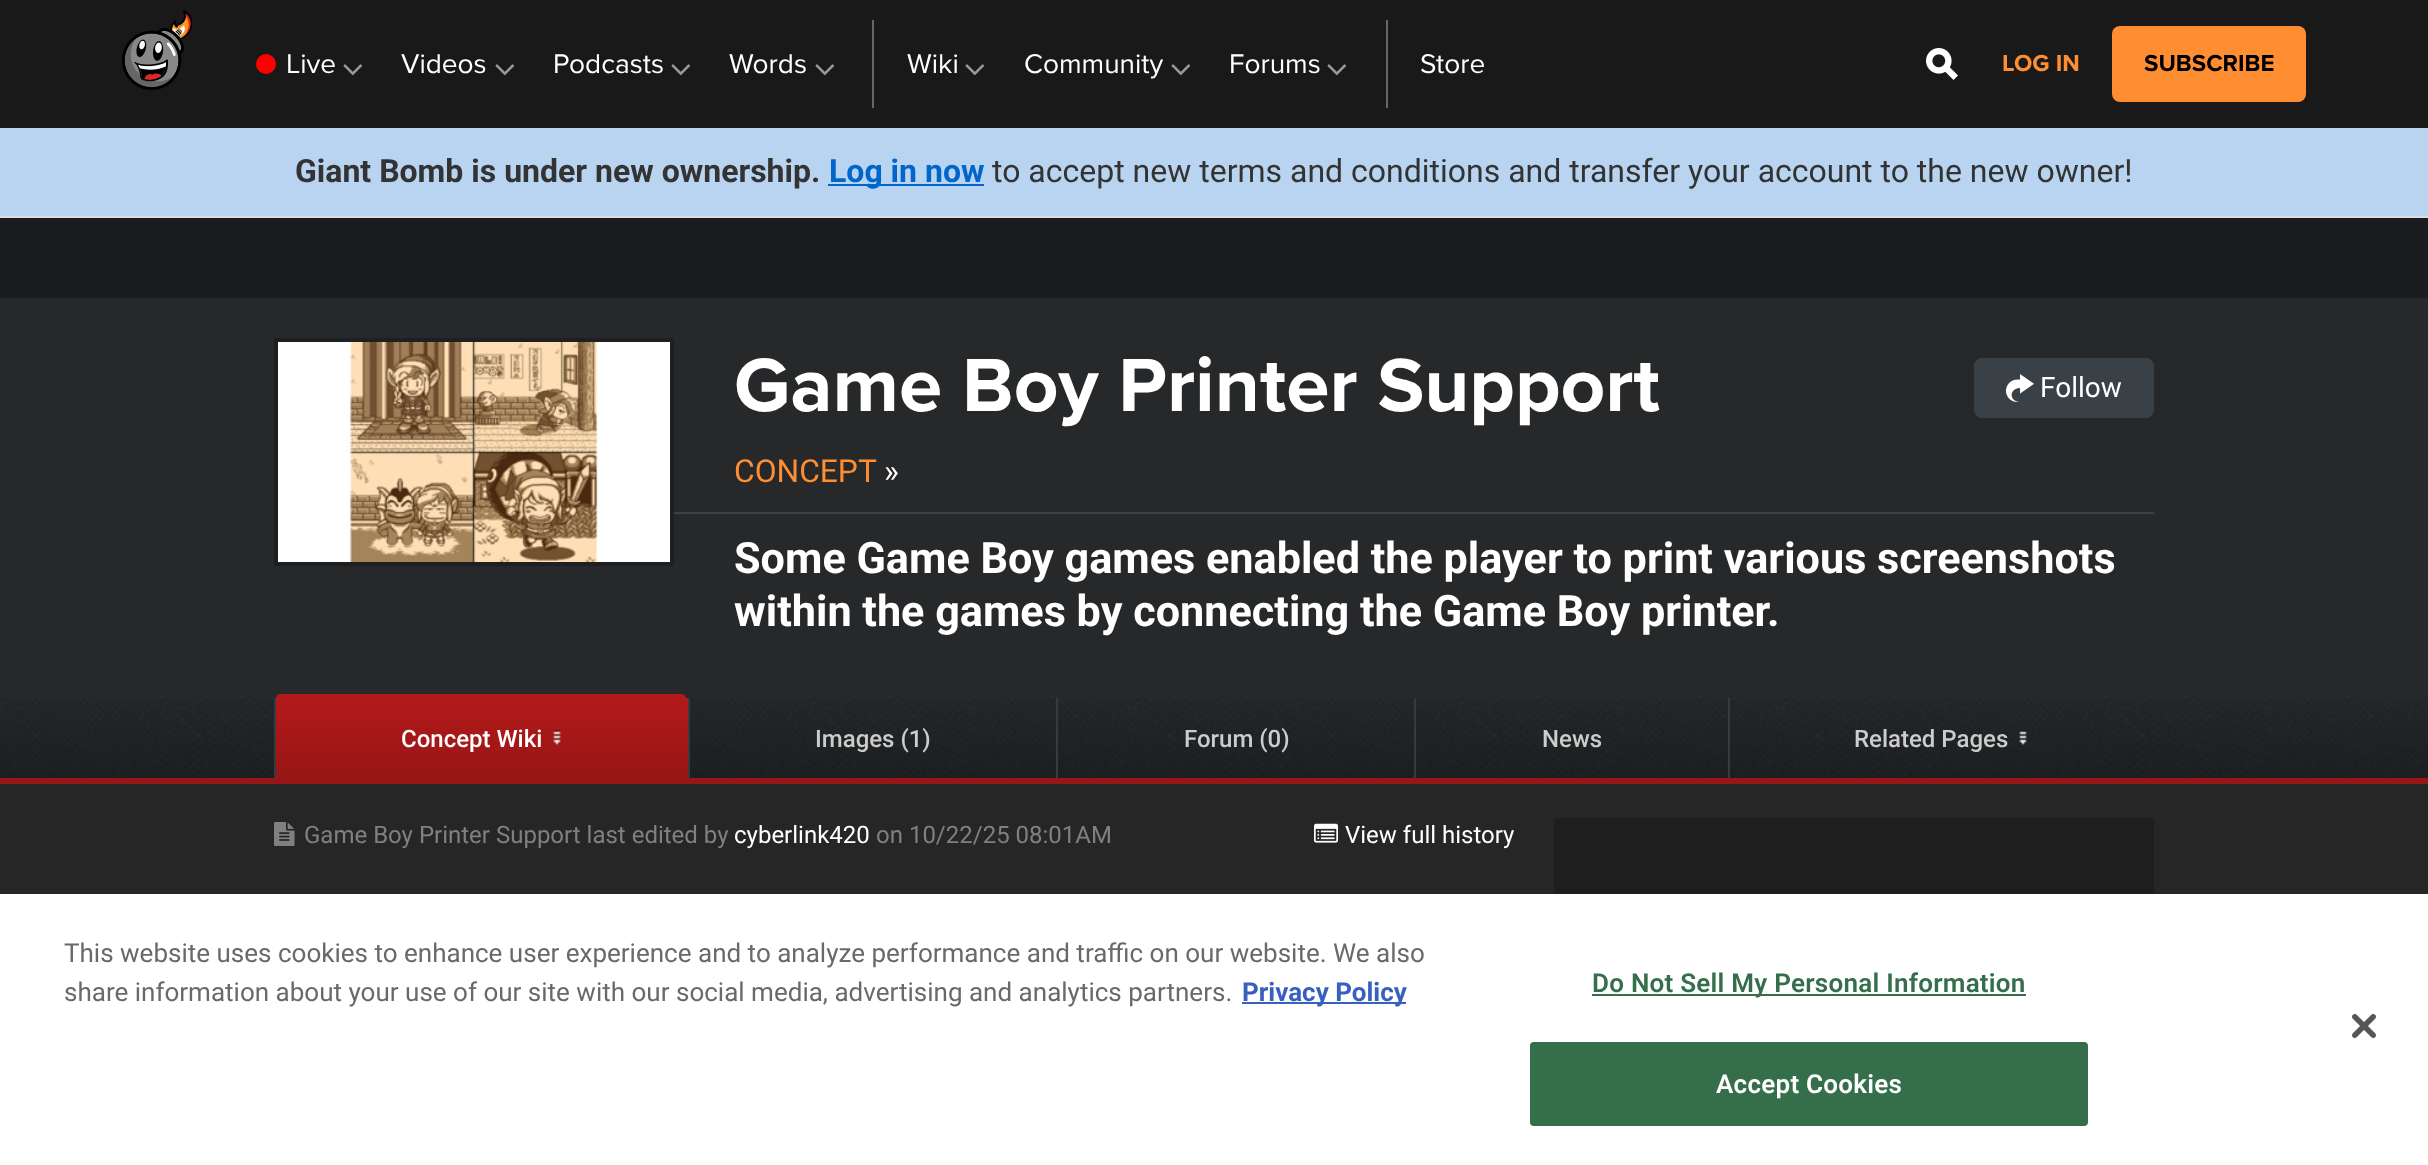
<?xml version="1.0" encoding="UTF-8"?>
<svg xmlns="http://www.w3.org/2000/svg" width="2428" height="1165">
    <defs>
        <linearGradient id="g1" gradientUnits="userSpaceOnUse" x1="482" y1="698" x2="482" y2="778"><stop offset="0" stop-color="#B31919"/><stop offset="1" stop-color="#981616"/></linearGradient>
    </defs>
    <rect width="100%" height="100%" fill="#262626"/>
    <rect x="0" y="0" width="2428" height="128" fill="#191919"/>
    <image x="122" y="10" width="70" height="80" href="img_01.png"/>
    <circle cx="266" cy="64" r="10" fill="#FF0000"/>
    <text x="286" y="73" font-family="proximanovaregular" font-size="28" fill="#FFFFFF">Live</text>
    <image x="343" y="64" width="20" height="12" href="img_02.png"/>
    <text x="401" y="73" font-family="proximanovaregular" font-size="28" fill="#FFFFFF">Videos</text>
    <image x="495" y="64" width="20" height="12" href="img_02.png"/>
    <text x="553" y="73" font-family="proximanovaregular" font-size="28" fill="#FFFFFF">Podcasts</text>
    <image x="671" y="64" width="20" height="12" href="img_02.png"/>
    <text x="729" y="73" font-family="proximanovaregular" font-size="28" fill="#FFFFFF">Words</text>
    <image x="815" y="64" width="20" height="12" href="img_02.png"/>
    <rect x="872" y="20" width="2" height="88" fill="#666666"/>
    <text x="907" y="73" font-family="proximanovaregular" font-size="28" fill="#FFFFFF">Wiki</text>
    <image x="965" y="64" width="20" height="12" href="img_02.png"/>
    <text x="1024" y="73" font-family="proximanovaregular" font-size="28" fill="#FFFFFF">Community</text>
    <image x="1171" y="64" width="20" height="12" href="img_02.png"/>
    <text x="1229" y="73" font-family="proximanovaregular" font-size="28" fill="#FFFFFF">Forums</text>
    <image x="1327" y="64" width="20" height="12" href="img_02.png"/>
    <rect x="1386" y="20" width="2" height="88" fill="#666666"/>
    <text x="1420" y="73" font-family="proximanovaregular" font-size="28" fill="#FFFFFF">Store</text>
    <image x="1926" y="48" width="32" height="32" href="img_03.png"/>
    <text x="2002" y="71" font-family="Proxima Nova" font-size="24" font-weight="700" fill="#FF8E33">LOG IN</text>
    <rect x="2112" y="26" width="194" height="76" rx="8" fill="#FF8E33"/>
    <text x="2144" y="71" font-family="Proxima Nova" font-size="24" font-weight="700" fill="#000000">SUBSCRIBE</text>
    <rect x="0" y="128" width="2428" height="88" fill="#B8D4F0"/>
    <rect x="0" y="216" width="2428" height="2" fill="#DDDDDD"/>
    <text x="295" y="182" font-family="Roboto" font-size="32" font-weight="700" fill="#333333">Giant Bomb is under new ownership.</text>
    <rect x="828" y="184" width="156" height="2" fill="#0066CC"/>
    <text x="829" y="182" font-family="Roboto" font-size="32" font-weight="700" fill="#0066CC">Log in now</text>
    <text x="992" y="182" font-family="Roboto" font-size="32" fill="#333333">to accept new terms and conditions and transfer your account to the new owner!</text>
    <rect x="0" y="218" width="2428" height="80" fill="#1B1C1D"/>
    <rect x="0" y="298" width="2428" height="400" fill="#26282A"/>
    <rect x="276" y="340" width="396" height="224" fill="none" stroke="#1D1F20" stroke-width="4"/>
    <image x="278" y="342" width="392" height="220" href="img_04.png"/>
    <text x="734" y="411" font-family="Proxima Nova" font-size="78" font-weight="700" fill="#FFFFFF">Game Boy Printer Support</text>
    <rect x="1975" y="359" width="178" height="58" rx="7" fill="#394046" stroke="#394046" stroke-width="2"/>
    <image x="2006" y="374" width="28" height="28" href="img_05.png"/>
    <text x="2040" y="397" font-family="Roboto" font-size="28" fill="#FFFFFF">Follow</text>
    <rect x="674" y="512" width="1480" height="2" fill="#404040"/>
    <text x="734" y="482" font-family="Roboto" font-size="31.75" fill="#FF8E33">CONCEPT</text>
    <text x="884" y="482" font-family="Roboto" font-size="31.75" fill="#FFFFFF">»</text>
    <text font-family="Roboto" font-size="43.2" font-weight="700" fill="#FFFFFF">
        <tspan x="734" y="573">Some Game Boy games enabled the player to print various screenshots</tspan>
        <tspan x="734" y="626">within the games by connecting the Game Boy printer.</tspan>
    </text>
    <image x="0" y="698" width="2428" height="80" href="img_06.png"/>
    <rect x="276" y="698" width="412" height="80" fill="url(#g1)"/>
    <rect x="274" y="698" width="2" height="80" fill="#373B3F"/>
    <path d="M 280 694 H 682 C 684 694 686 696 686 698 H 276 C 276 696 278 694 280 694 Z" fill="#B31919"/>
    <text x="401" y="747" font-family="Roboto" font-size="24" font-weight="500" fill="#FFFFFF">Concept Wiki</text>
    <image x="553" y="729" width="8" height="16" href="img_07.png"/>
    <rect x="688" y="698" width="2" height="80" fill="#373B3F"/>
    <text x="815" y="747" font-family="Roboto" font-size="24" font-weight="500" fill="#CCCCCC">Images (1)</text>
    <rect x="1056" y="698" width="2" height="80" fill="#373B3F"/>
    <text x="1184" y="747" font-family="Roboto" font-size="24" font-weight="500" fill="#CCCCCC">Forum (0)</text>
    <rect x="1414" y="698" width="2" height="80" fill="#373B3F"/>
    <text x="1542" y="747" font-family="Roboto" font-size="24" font-weight="500" fill="#CCCCCC">News</text>
    <rect x="1728" y="698" width="2" height="80" fill="#373B3F"/>
    <text x="1854" y="747" font-family="Roboto" font-size="24" font-weight="500" fill="#CCCCCC">Related Pages</text>
    <image x="2019" y="730" width="8" height="15" href="img_08.png"/>
    <rect x="0" y="778" width="2428" height="6" fill="#981616"/>
    <image x="274" y="822" width="21" height="24" href="img_09.png"/>
    <text x="304" y="843" font-family="Roboto" font-size="24" fill="#808080">Game Boy Printer Support last edited by</text>
    <text x="734" y="843" font-family="Roboto" font-size="24" fill="#FFFFFF">cyberlink420</text>
    <text x="876" y="843" font-family="Roboto" font-size="24" fill="#808080">on 10/22/25 08:01AM</text>
    <image x="1314" y="823" width="24" height="20" href="img_10.png"/>
    <text x="1345" y="843" font-family="Roboto" font-size="24" fill="#FFFFFF">View full history</text>
    <rect x="1554" y="818" width="600" height="76" fill="#1E1E1E"/>
    <rect x="0" y="894" width="2428" height="271" fill="#FFFFFF"/>
    <text font-family="Roboto" font-size="26.02" fill="#696969">
        <tspan x="64" y="962">This website uses cookies to enhance user experience and to analyze performance and traffic on our website. We also</tspan>
        <tspan x="64" y="1001">share information about your use of our site with our social media, advertising and analytics partners.</tspan>
    </text>
    <rect x="1242" y="1002" width="164" height="2" fill="#3860BE"/>
    <text x="1242" y="1001" font-family="Roboto" font-size="26.02" font-weight="700" fill="#3860BE">Privacy Policy</text>
    <rect x="1592" y="994" width="434" height="2" fill="#346E4A"/>
    <text x="1592" y="992" font-family="Roboto" font-size="26.02" font-weight="600" letter-spacing="0.25" fill="#346E4A">Do Not Sell My Personal Information</text>
    <rect x="1531" y="1043" width="556" height="82" rx="3" fill="#346E4A" stroke="#346E4A" stroke-width="2"/>
    <text x="1716" y="1093" font-family="Roboto" font-size="26.02" font-weight="600" letter-spacing="0.25" fill="#FFFFFF">Accept Cookies</text>
    <image x="2352" y="1014" width="24" height="24" href="img_11.png"/>
</svg>
